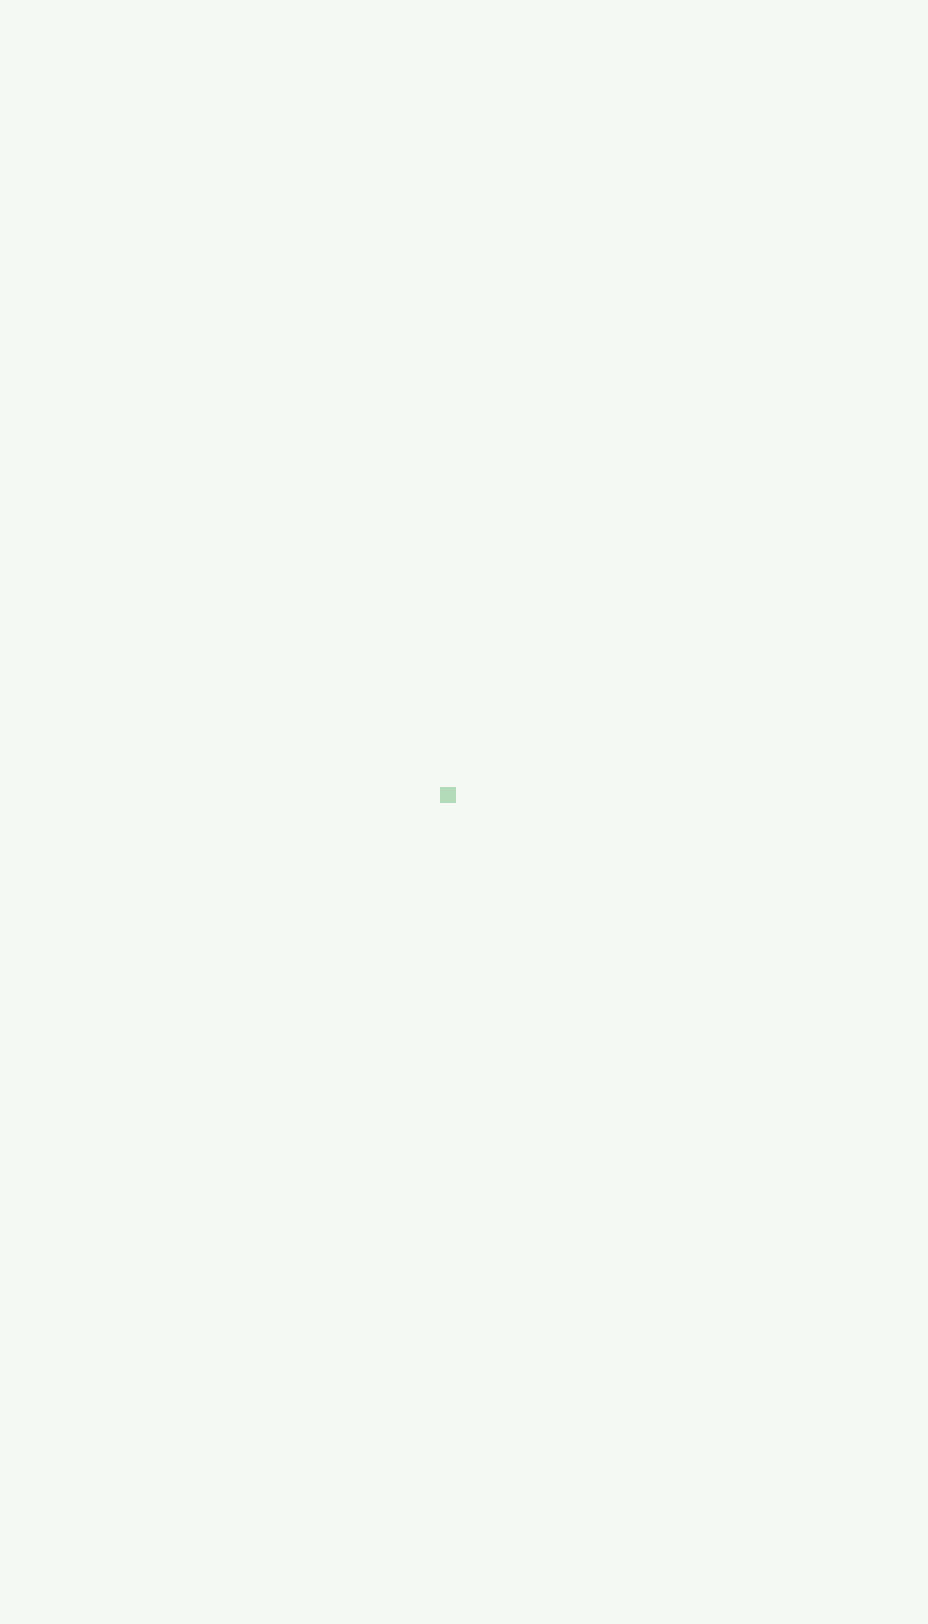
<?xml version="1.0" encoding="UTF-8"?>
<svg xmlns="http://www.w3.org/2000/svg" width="928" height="1624">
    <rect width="100%" height="100%" fill="#F4FAF3"/>
    <rect x="440" y="787" width="16" height="16" fill="#B3DAB9"/>
</svg>
